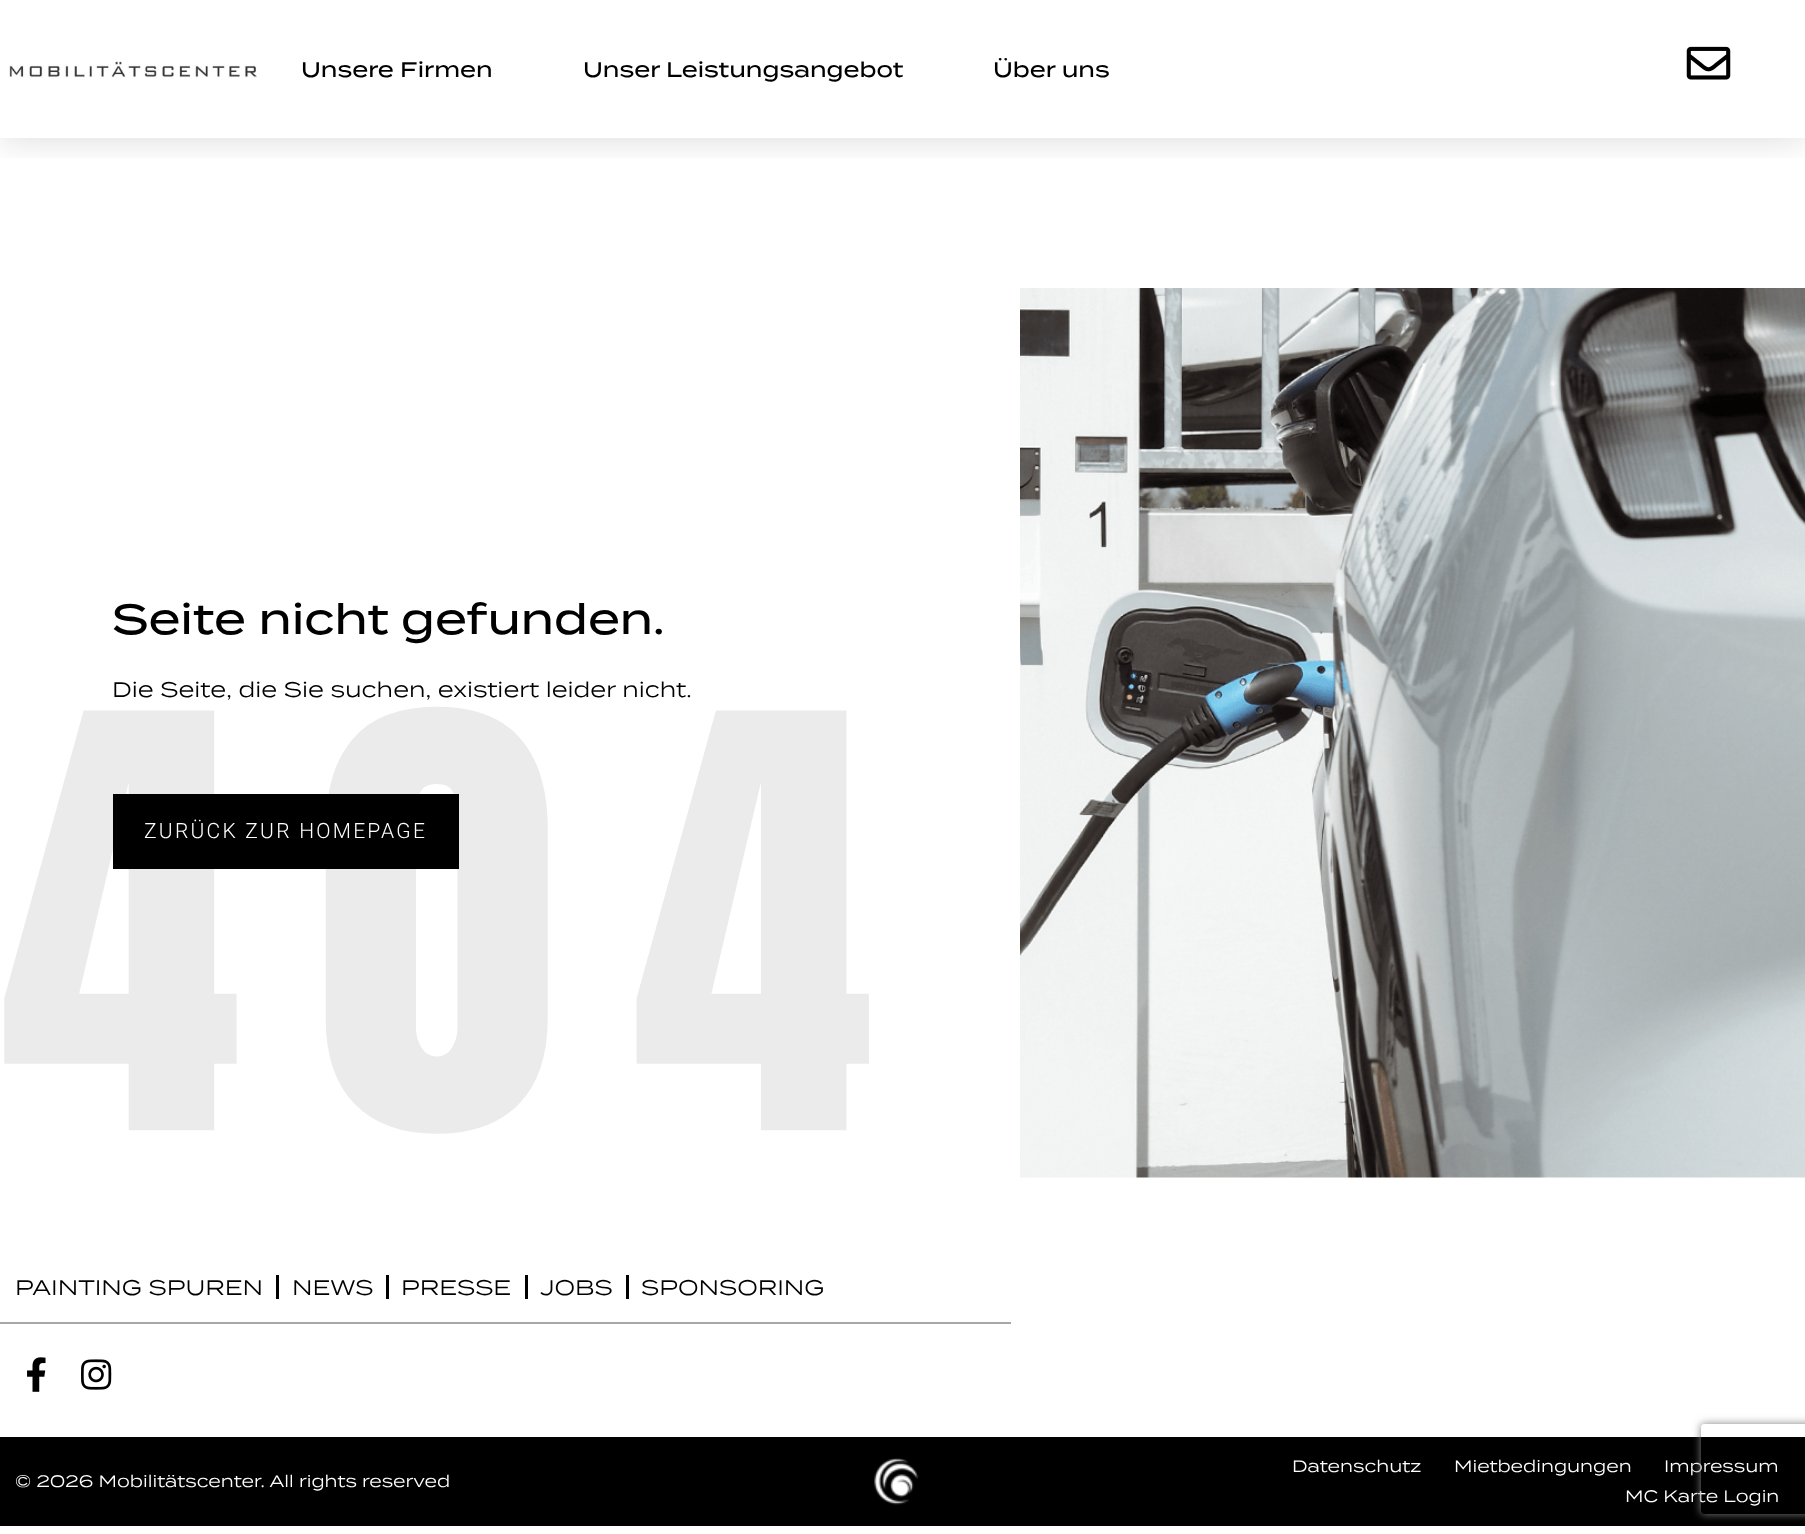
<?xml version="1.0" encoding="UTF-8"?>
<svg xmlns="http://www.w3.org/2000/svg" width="1805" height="1534">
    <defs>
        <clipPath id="clip1"><rect x="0" y="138" width="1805" height="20"/></clipPath>
        <filter id="blur1" x="-50%" y="-200%" width="200%" height="500%"><feGaussianBlur stdDeviation="18"/></filter>
        <clipPath id="clip2"><path d="M 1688 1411 H 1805 V 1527 H 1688 Z M 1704 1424 H 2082 C 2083.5 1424 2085 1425.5 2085 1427 V 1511 C 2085 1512.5 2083.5 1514 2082 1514 H 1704 C 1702.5 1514 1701 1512.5 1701 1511 V 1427 C 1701 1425.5 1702.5 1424 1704 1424 Z" clip-rule="evenodd"/></clipPath>
        <filter id="blur2" x="-50%" y="-200%" width="200%" height="500%"><feGaussianBlur stdDeviation="4"/></filter>
    </defs>
    <rect width="100%" height="100%" fill="#FFFFFF"/>
    <g clip-path="url(#clip1)">
        <rect x="0" y="0" width="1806" height="138" fill="#000000" fill-opacity="0.15" filter="url(#blur1)"/>
    </g>
    <image x="9" y="61" width="248" height="17" href="img_01.png"/>
    <text x="301" y="77" font-family="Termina" font-size="21" font-weight="500" fill="#000000">Unsere Firmen</text>
    <text x="583" y="77" font-family="Termina" font-size="21" font-weight="500" fill="#000000">Unser Leistungsangebot</text>
    <text x="993" y="77" font-family="Termina" font-size="21" font-weight="500" fill="#000000">Über uns</text>
    <image x="1686" y="46" width="45" height="34" href="img_02.png"/>
    <text x="112" y="634" font-family="Termina" font-size="42" font-weight="500" fill="#000000">Seite nicht gefunden.</text>
    <text x="112" y="697" font-family="Termina" font-size="21" fill="#000000">Die Seite, die Sie suchen, existiert leider nicht.</text>
    <text x="0" y="1130" font-family="Anton" font-size="488" letter-spacing="75" fill="#EBEBEB">404</text>
    <rect x="113" y="794" width="346" height="75" fill="#000000"/>
    <text x="144" y="838" font-family="Roboto" font-size="21" font-weight="300" letter-spacing="2.25" fill="#FFFFFF">ZURÜCK ZUR HOMEPAGE</text>
    <image x="1020" y="288" width="785" height="890" href="img_03.png"/>
    <rect x="0" y="1322" width="1011" height="2" fill="#A7A7A7"/>
    <text x="15" y="1295" font-family="Termina" font-size="21" fill="#000000">PAINTING SPUREN</text>
    <rect x="276" y="1275" width="3" height="24" fill="#000000"/>
    <text x="292" y="1295" font-family="Termina" font-size="21" fill="#000000">NEWS</text>
    <rect x="386" y="1275" width="3" height="24" fill="#000000"/>
    <text x="401" y="1295" font-family="Termina" font-size="21" fill="#000000">PRESSE</text>
    <rect x="525" y="1275" width="3" height="24" fill="#000000"/>
    <text x="540" y="1295" font-family="Termina" font-size="21" fill="#000000">JOBS</text>
    <rect x="626" y="1275" width="3" height="24" fill="#000000"/>
    <text x="641" y="1295" font-family="Termina" font-size="21" fill="#000000">SPONSORING</text>
    <image x="27" y="1357" width="19" height="35" href="img_04.png"/>
    <image x="81" y="1359" width="31" height="31" href="img_05.png"/>
    <rect x="0" y="1437" width="1805" height="89" fill="#000000"/>
    <text x="15" y="1487" font-family="Termina" font-size="16.5" fill="#FFFFFF">© 2026 Mobilitätscenter. All rights reserved</text>
    <image x="874" y="1458" width="45" height="47" href="img_06.png"/>
    <text x="1292" y="1472" font-family="Termina" font-size="16.5" fill="#FFFFFF">Datenschutz</text>
    <text x="1454" y="1472" font-family="Termina" font-size="16.5" fill="#FFFFFF">Mietbedingungen</text>
    <text x="1664" y="1472" font-family="Termina" font-size="16.5" fill="#FFFFFF">Impressum</text>
    <text x="1625" y="1502" font-family="Termina" font-size="16.5" fill="#FFFFFF">MC Karte Login</text>
    <g clip-path="url(#clip2)">
        <rect x="1701" y="1424" width="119" height="90" rx="3" fill="#808080" filter="url(#blur2)"/>
    </g>
</svg>
